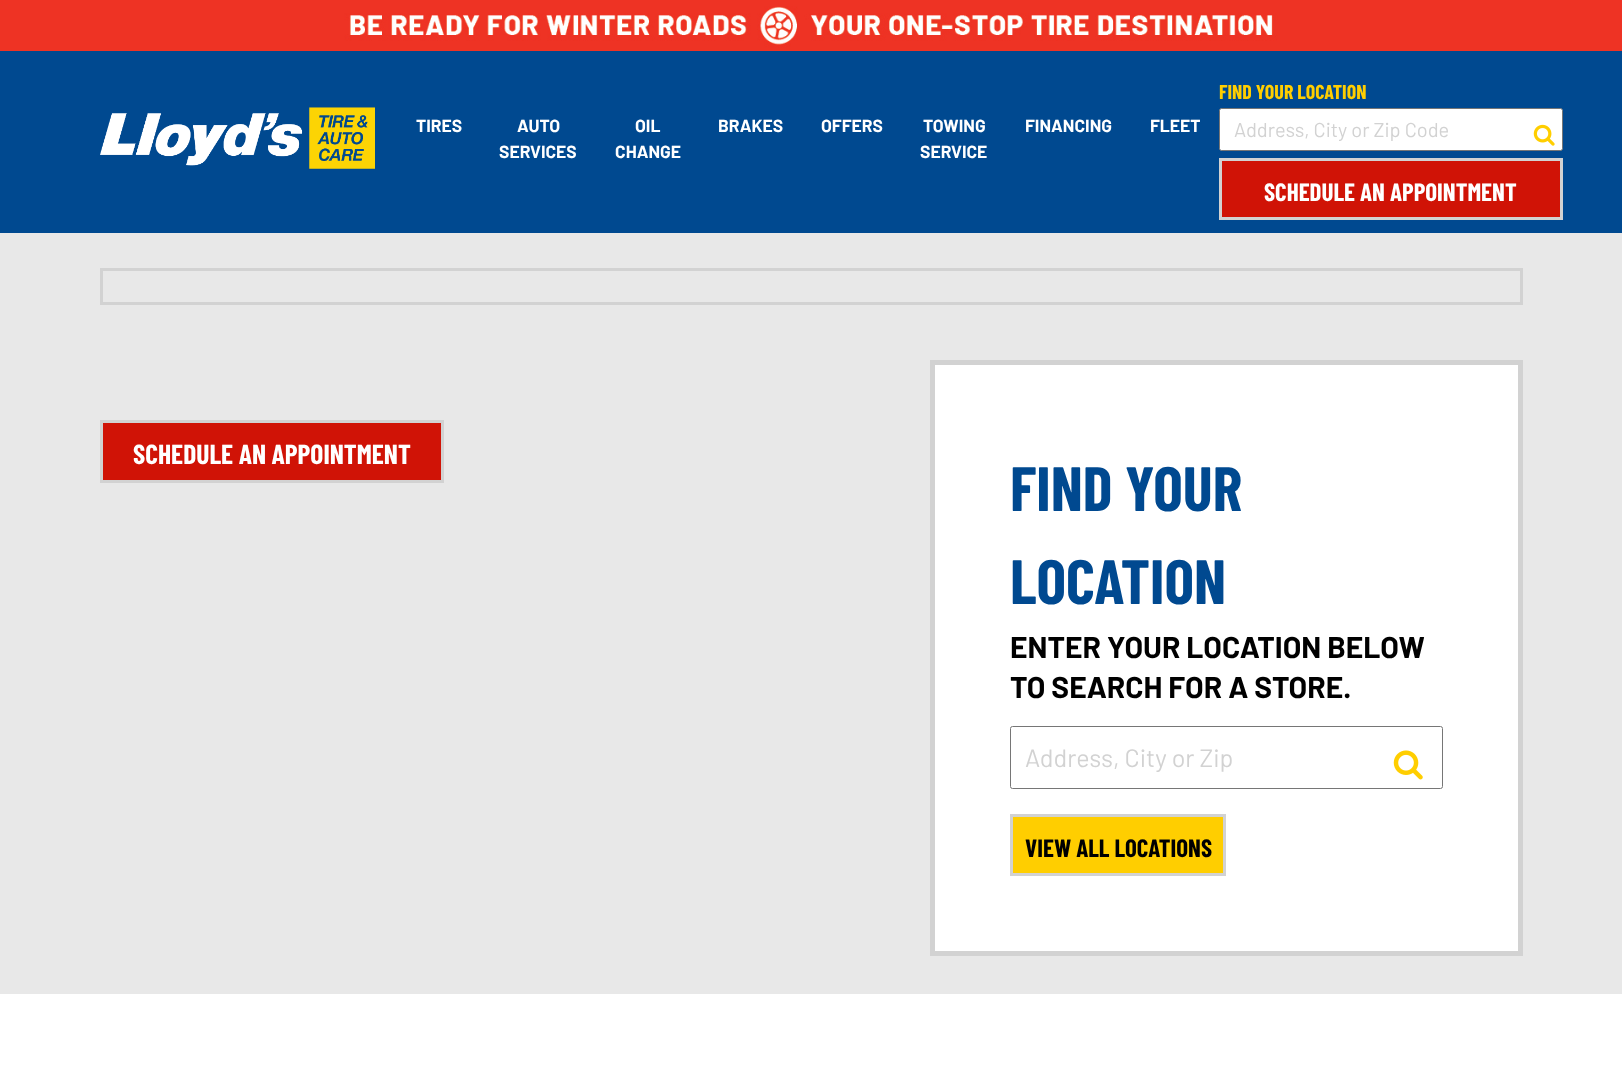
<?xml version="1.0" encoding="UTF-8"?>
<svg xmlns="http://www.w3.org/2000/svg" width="1622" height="1075">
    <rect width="100%" height="100%" fill="#FFFFFF"/>
    <image x="0" y="0" width="1622" height="51" href="img_01.png"/>
    <rect x="0" y="51" width="1622" height="182" fill="#004990"/>
    <image x="100" y="107" width="275" height="62" href="img_02.png"/>
    <text x="416" y="132" font-family="Barlow" font-size="17.5" font-weight="700" fill="#FFFFFF">TIRES</text>
    <text x="517" y="132" font-family="Barlow" font-size="17.5" font-weight="700" fill="#FFFFFF">AUTO</text>
    <text x="499" y="158" font-family="Barlow" font-size="17.5" font-weight="700" fill="#FFFFFF">SERVICES</text>
    <text x="635" y="132" font-family="Barlow" font-size="17.5" font-weight="700" fill="#FFFFFF">OIL</text>
    <text x="615" y="158" font-family="Barlow" font-size="17.5" font-weight="700" fill="#FFFFFF">CHANGE</text>
    <text x="718" y="132" font-family="Barlow" font-size="17.5" font-weight="700" fill="#FFFFFF">BRAKES</text>
    <text x="821" y="132" font-family="Barlow" font-size="17.5" font-weight="700" fill="#FFFFFF">OFFERS</text>
    <text x="923" y="132" font-family="Barlow" font-size="17.5" font-weight="700" fill="#FFFFFF">TOWING</text>
    <text x="920" y="158" font-family="Barlow" font-size="17.5" font-weight="700" fill="#FFFFFF">SERVICE</text>
    <text x="1025" y="132" font-family="Barlow" font-size="17.5" font-weight="700" fill="#FFFFFF">FINANCING</text>
    <text x="1150" y="132" font-family="Barlow" font-size="17.5" font-weight="700" fill="#FFFFFF">FLEET</text>
    <text x="1219" y="99" font-family="Barlow Condensed" font-size="20" font-weight="700" fill="#FFCE00">FIND YOUR LOCATION</text>
    <rect x="1219.5" y="108.5" width="343" height="42" rx="2" fill="#FFFFFF" stroke="#767676"/>
    <text x="1234" y="137" font-family="Barlow" font-size="20" fill="#D2D2D2">Address, City or Zip Code</text>
    <image x="1533" y="124" width="22" height="22" href="img_03.png"/>
    <rect x="1220.5" y="159.5" width="341" height="59" fill="#D01306" stroke="#D2D2D2" stroke-width="3"/>
    <text x="1264" y="201" font-family="Barlow Condensed" font-size="25" font-weight="700" fill="#FFFFFF">SCHEDULE AN APPOINTMENT</text>
    <rect x="0" y="233" width="1622" height="761" fill="#E8E8E8"/>
    <rect x="101.5" y="269.5" width="1420" height="34" fill="none" stroke="#D2D2D2" stroke-width="3"/>
    <rect x="101.5" y="421.5" width="341" height="60" fill="#D01306" stroke="#D2D2D2" stroke-width="3"/>
    <text x="133" y="464" font-family="Barlow Condensed" font-size="27.5" font-weight="700" fill="#FFFFFF">SCHEDULE AN APPOINTMENT</text>
    <rect x="931.5" y="361.5" width="590" height="593" fill="none" stroke="#D2D2D2" stroke-width="3"/>
    <rect x="934.5" y="364.5" width="584" height="588" fill="none" stroke="#D2D2D2" stroke-width="3"/>
    <rect x="935" y="365" width="583" height="586" fill="#FFFFFF"/>
    <text font-family="Barlow Condensed" font-size="62.5" font-weight="700" fill="#004990">
        <tspan x="1010" y="511">FIND YOUR</tspan>
        <tspan x="1010" y="604">LOCATION</tspan>
    </text>
    <text font-family="Barlow" font-size="30" font-weight="700" fill="#000000">
        <tspan x="1010" y="658">ENTER YOUR LOCATION BELOW</tspan>
        <tspan x="1010" y="698">TO SEARCH FOR A STORE.</tspan>
    </text>
    <rect x="1010.5" y="726.5" width="432" height="62" rx="2" fill="none" stroke="#767676"/>
    <text x="1025" y="767" font-family="Barlow" font-size="25" fill="#D2D2D2">Address, City or Zip</text>
    <image x="1393" y="750" width="30" height="30" href="img_04.png"/>
    <rect x="1011.5" y="815.5" width="213" height="59" fill="#FFCE00" stroke="#D2D2D2" stroke-width="3"/>
    <text x="1025" y="857" font-family="Barlow Condensed" font-size="25" font-weight="700" fill="#000000">VIEW ALL LOCATIONS</text>
</svg>
